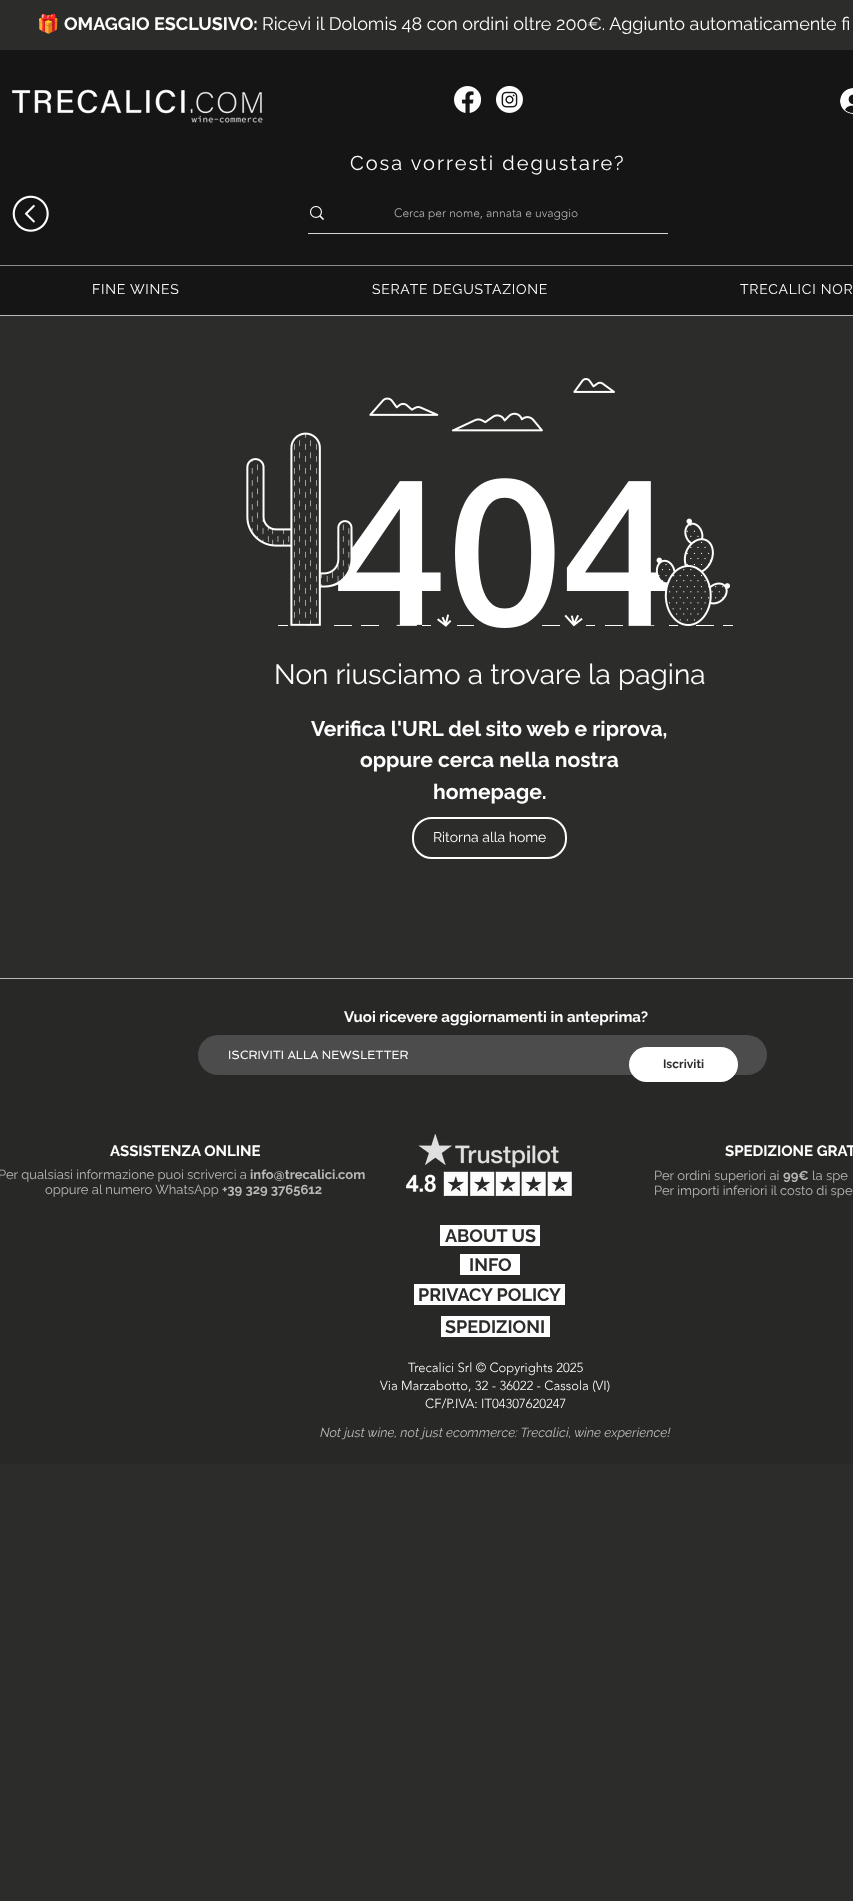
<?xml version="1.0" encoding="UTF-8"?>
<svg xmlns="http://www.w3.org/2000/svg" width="853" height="1901">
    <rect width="100%" height="100%" fill="#2C2C2B"/>
    <text x="37" y="30" font-family="Noto Color Emoji" font-size="18" fill="#FFFFFF">🎁</text>
    <text x="64" y="30" font-family="Raleway" font-size="18" font-weight="700" fill="#FFFFFF">OMAGGIO ESCLUSIVO:</text>
    <text x="262" y="30" font-family="Raleway" font-size="18" fill="#FFFFFF">Ricevi il Dolomis 48 con ordini oltre 200€. Aggiunto automaticamente fi</text>
    <rect x="0" y="50" width="853" height="265" fill="#151515"/>
    <image x="12" y="89" width="251" height="34" href="img_01.png"/>
    <image x="454" y="86" width="27" height="27" href="img_02.png"/>
    <image x="496" y="86" width="27" height="27" href="img_03.png"/>
    <image x="840" y="88" width="13" height="26" href="img_04.png"/>
    <text x="350" y="170" font-family="'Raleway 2'" font-size="20" letter-spacing="2" fill="#FFFFFF">Cosa vorresti degustare?</text>
    <image x="12" y="195" width="37" height="37" href="img_05.png"/>
    <rect x="308" y="233" width="360" height="1" fill="#D5D5D5"/>
    <image x="310" y="206" width="14" height="14" href="img_06.png"/>
    <text x="394" y="217" font-family="'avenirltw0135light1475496'" font-size="12" font-weight="300" fill="#B9B9B9">Cerca per nome, annata e uvaggio</text>
    <rect x="0" y="265" width="853" height="1" fill="#8A8A8A"/>
    <text x="92" y="294" font-family="Raleway" font-size="14" letter-spacing="0.75" fill="#FFFFFF">FINE WINES</text>
    <text x="372" y="294" font-family="Raleway" font-size="14" letter-spacing="0.75" fill="#FFFFFF">SERATE DEGUSTAZIONE</text>
    <text x="740" y="294" font-family="Raleway" font-size="14" letter-spacing="0.75" fill="#FFFFFF">TRECALICI NOR</text>
    <rect x="0" y="315" width="853" height="1" fill="#B9B9B9"/>
    <image x="246" y="378" width="487" height="250" href="img_07.png"/>
    <text x="274" y="684" font-family="'Raleway 2'" font-size="28" fill="#FFFFFF">Non riusciamo a trovare la pagina</text>
    <text x="311" y="736" font-family="'Raleway 2'" font-size="21" font-weight="700" fill="#FFFFFF">Verifica l'URL del sito web e riprova,</text>
    <text x="360" y="767" font-family="'Raleway 2'" font-size="21" font-weight="700" fill="#FFFFFF">oppure cerca nella nostra</text>
    <text x="433" y="799" font-family="'Raleway 2'" font-size="21" font-weight="700" fill="#FFFFFF">homepage.</text>
    <rect x="413" y="818" width="153" height="40" rx="19" fill="none" stroke="#FFFFFF" stroke-width="2"/>
    <text x="433" y="842" font-family="'Raleway 2'" font-size="14" fill="#FFFFFF">Ritorna alla home</text>
    <rect x="0" y="979" width="853" height="485" fill="#282827"/>
    <rect x="0" y="978" width="853" height="1" fill="#B9B9B9"/>
    <text x="344" y="1022" font-family="'Raleway 2'" font-size="15" font-weight="700" fill="#FFFFFF">Vuoi ricevere aggiornamenti in anteprima?</text>
    <rect x="198" y="1035" width="569" height="40" rx="20" fill="#4C4C4C"/>
    <text x="228" y="1059" font-family="Spinnaker" font-size="12" fill="#FFFFFF">ISCRIVITI ALLA NEWSLETTER</text>
    <rect x="629" y="1047" width="109" height="35" rx="17.5" fill="#FFFFFF"/>
    <text x="663" y="1068" font-family="'Raleway 2'" font-size="12" font-weight="700" fill="#2C2C2B">Iscriviti</text>
    <text x="110" y="1156" font-family="'Raleway 2'" font-size="15" font-weight="700" fill="#FFFFFF">ASSISTENZA ONLINE</text>
    <image x="405" y="1134" width="167" height="63" href="img_08.png"/>
    <text x="725" y="1156" font-family="'Raleway 2'" font-size="15" font-weight="700" fill="#FFFFFF">SPEDIZIONE GRAT</text>
    <text x="-2" y="1179" font-family="'Raleway 2'" font-size="13" fill="#B9B9B9">Per qualsiasi informazione puoi scriverci a</text>
    <text x="250" y="1179" font-family="'Raleway 2'" font-size="13" font-weight="700" fill="#B9B9B9">info@trecalici.com</text>
    <text x="45" y="1194" font-family="'Raleway 2'" font-size="13" fill="#B9B9B9">oppure al numero WhatsApp</text>
    <text x="222" y="1194" font-family="'Raleway 2'" font-size="13" font-weight="700" fill="#B9B9B9">+39 329 3765612</text>
    <text x="654" y="1180" font-family="'Raleway 2'" font-size="13" fill="#B9B9B9">Per ordini superiori ai</text>
    <text x="783" y="1180" font-family="'Raleway 2'" font-size="13" font-weight="700" fill="#B9B9B9">99€</text>
    <text x="812" y="1180" font-family="'Raleway 2'" font-size="13" fill="#B9B9B9">la spe</text>
    <text x="654" y="1195" font-family="'Raleway 2'" font-size="13" fill="#B9B9B9">Per importi inferiori il costo di spe</text>
    <rect x="440" y="1225" width="100" height="21" fill="#FFFFFF"/>
    <text x="445" y="1242" font-family="'Raleway 2'" font-size="18" font-weight="700" fill="#2C2C2B">ABOUT US</text>
    <rect x="460" y="1254" width="60" height="21" fill="#FFFFFF"/>
    <text x="469" y="1271" font-family="'Raleway 2'" font-size="18" font-weight="700" fill="#2C2C2B">INFO</text>
    <rect x="414" y="1284" width="151" height="21" fill="#FFFFFF"/>
    <text x="418" y="1301" font-family="'Raleway 2'" font-size="18" font-weight="700" fill="#2C2C2B">PRIVACY POLICY</text>
    <rect x="441" y="1316" width="109" height="21" fill="#FFFFFF"/>
    <text x="445" y="1333" font-family="'Raleway 2'" font-size="18" font-weight="700" fill="#2C2C2B">SPEDIZIONI</text>
    <text x="408" y="1372" font-family="'avenirltw0135light1475496'" font-size="13" font-weight="300" fill="#FFFFFF">Trecalici Srl © Copyrights 2025</text>
    <text x="380" y="1390" font-family="'avenirltw0135light1475496'" font-size="13" font-weight="300" fill="#FFFFFF">Via Marzabotto, 32 - 36022 - Cassola (VI)</text>
    <text x="425" y="1408" font-family="'avenirltw0135light1475496'" font-size="13" font-weight="300" fill="#FFFFFF">CF/P.IVA: IT04307620247</text>
    <text x="320" y="1437" font-family="Raleway" font-size="13" font-style="italic" fill="#B9B9B9">Not just wine, not just ecommerce: Trecalici, wine experience!</text>
</svg>
